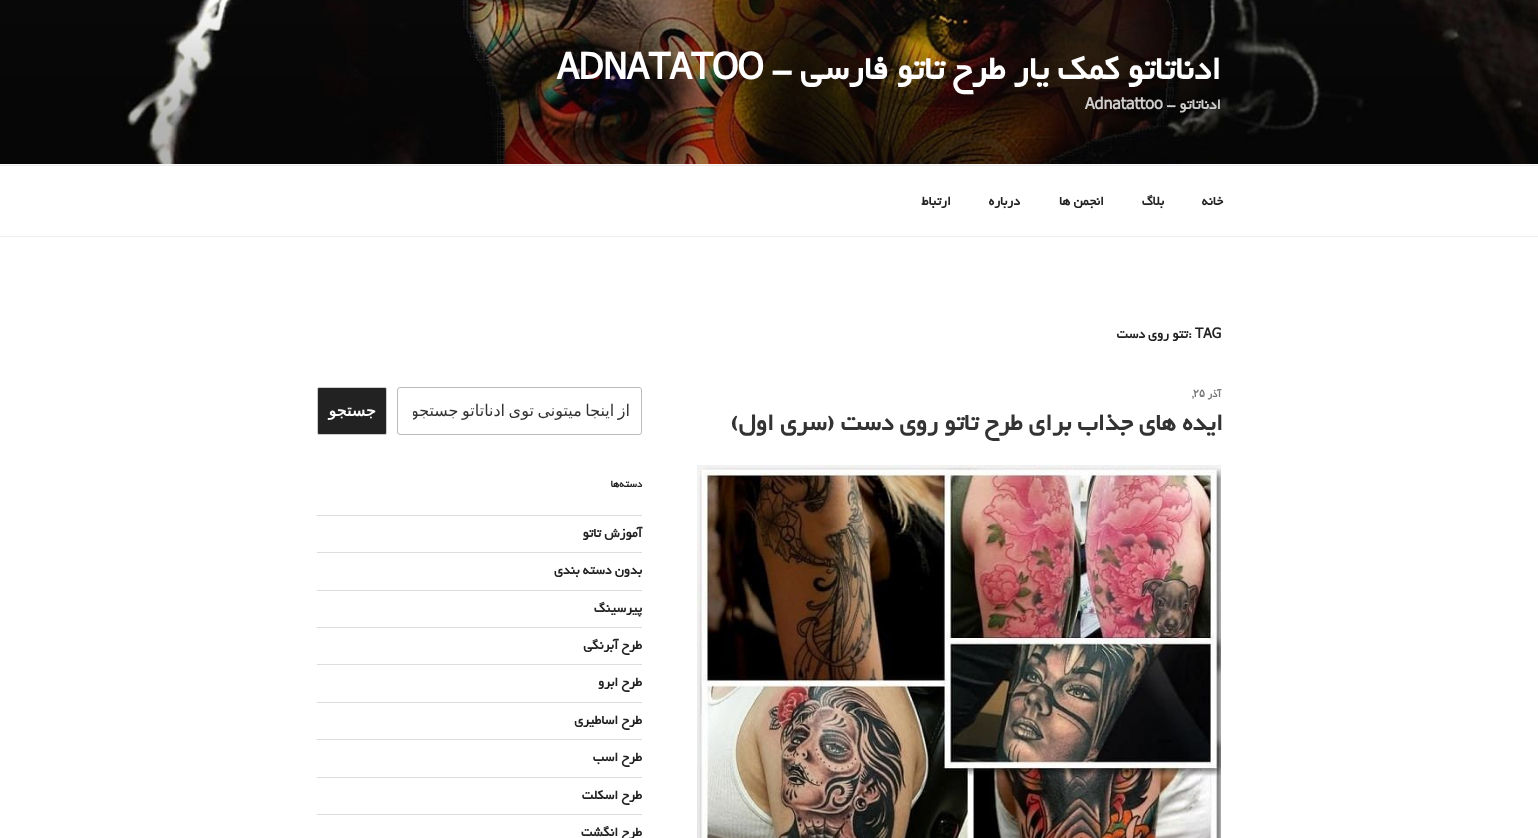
<?xml version="1.0" encoding="UTF-8"?>
<svg xmlns="http://www.w3.org/2000/svg" width="1538" height="838">
    <defs>
        <clipPath id="clip1"><rect x="413" y="401" width="217" height="19"/></clipPath>
    </defs>
    <rect width="100%" height="100%" fill="#FFFFFF"/>
    <rect x="0" y="164" width="1538" height="1" fill="#FAFAFA"/>
    <image x="0" y="0" width="1538" height="164" href="img_01.png"/>
    <text x="1221" y="79" font-family="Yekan" font-size="36" font-weight="700" direction="rtl" fill="#FFFFFF">ادناتاتو کمک یار طرح تاتو فارسی –</text>
    <text x="557" y="79" font-family="Yekan" font-size="36" font-weight="700" fill="#FFFFFF">ADNATATOO</text>
    <text x="1221" y="109" font-family="Yekan" font-size="16" font-weight="700" direction="rtl" fill="#CFCECD">ادناتاتو –</text>
    <text x="1085" y="109" font-family="Yekan" font-size="16" font-weight="700" fill="#CFCECD">Adnatattoo</text>
    <rect x="0" y="165" width="1538" height="1" fill="#EEEEEE"/>
    <rect x="0" y="236" width="1538" height="1" fill="#EEEEEE"/>
    <text x="1223" y="205" font-family="Yekan" font-size="14" font-weight="700" direction="rtl" fill="#222222">خانه</text>
    <text x="1164" y="205" font-family="Yekan" font-size="14" font-weight="700" direction="rtl" fill="#222222">بلاگ</text>
    <text x="1104" y="205" font-family="Yekan" font-size="14" font-weight="700" direction="rtl" fill="#222222">انجمن ها</text>
    <text x="1020" y="205" font-family="Yekan" font-size="14" font-weight="700" direction="rtl" fill="#222222">درباره</text>
    <text x="951" y="205" font-family="Yekan" font-size="14" font-weight="700" direction="rtl" fill="#222222">ارتباط</text>
    <text x="1188" y="338" font-family="Yekan" font-size="14" font-weight="700" fill="#222222">: TAG</text>
    <text x="1188" y="338" font-family="Yekan" font-size="14" font-weight="700" direction="rtl" fill="#222222">تتو روی دست</text>
    <text x="1221" y="397" font-family="Yekan" font-size="11" font-weight="700" direction="rtl" fill="#767676">آذر</text>
    <text x="1192" y="397" font-family="Yekan" font-size="11" font-weight="700" fill="#767676">,</text>
    <text x="1193" y="397" font-family="DejaVu Sans" font-size="11" font-weight="700" fill="#767676">۲۵</text>
    <text x="1223" y="430" font-family="Yekan" font-size="26" font-weight="700" direction="rtl" fill="#333333">ایده های جذاب برای طرح تاتو روی دست (سری اول)</text>
    <image x="697" y="465" width="524" height="373" href="img_02.png"/>
    <rect x="397.5" y="387.5" width="244" height="47" rx="2.5" fill="none" stroke="#BBBBBB"/>
    <g clip-path="url(#clip1)">
        <text x="630" y="416" word-spacing="-1.5" font-family="DejaVu Sans" font-size="16" direction="rtl" fill="#333333">از اینجا میتونی توی ادناتاتو جستجو کنی</text>
    </g>
    <rect x="317.5" y="387.5" width="69" height="47" rx="1.5" fill="#222222" stroke="#CCCCCC"/>
    <text x="376" y="416" font-family="DejaVu Sans" font-size="16" font-weight="700" direction="rtl" fill="#FFFFFF">جستجو</text>
    <text x="642" y="487" font-family="Yekan" font-size="11" font-weight="700" direction="rtl" fill="#222222">دسته‌ها</text>
    <rect x="317" y="515" width="325" height="1" fill="#DDDDDD"/>
    <rect x="317" y="552" width="325" height="1" fill="#DDDDDD"/>
    <text x="642" y="537" font-family="Yekan" font-size="14" font-weight="700" direction="rtl" fill="#222222">آموزش تاتو</text>
    <rect x="317" y="590" width="325" height="1" fill="#DDDDDD"/>
    <text x="642" y="574" font-family="Yekan" font-size="14" font-weight="700" direction="rtl" fill="#222222">بدون دسته بندی</text>
    <rect x="317" y="627" width="325" height="1" fill="#DDDDDD"/>
    <text x="642" y="612" font-family="Yekan" font-size="14" font-weight="700" direction="rtl" fill="#222222">پیرسینگ</text>
    <rect x="317" y="664" width="325" height="1" fill="#DDDDDD"/>
    <text x="642" y="649" font-family="Yekan" font-size="14" font-weight="700" direction="rtl" fill="#222222">طرح آبرنگی</text>
    <rect x="317" y="702" width="325" height="1" fill="#DDDDDD"/>
    <text x="642" y="686" font-family="Yekan" font-size="14" font-weight="700" direction="rtl" fill="#222222">طرح ابرو</text>
    <rect x="317" y="739" width="325" height="1" fill="#DDDDDD"/>
    <text x="642" y="724" font-family="Yekan" font-size="14" font-weight="700" direction="rtl" fill="#222222">طرح اساطیری</text>
    <rect x="317" y="777" width="325" height="1" fill="#DDDDDD"/>
    <text x="642" y="761" font-family="Yekan" font-size="14" font-weight="700" direction="rtl" fill="#222222">طرح اسب</text>
    <rect x="317" y="814" width="325" height="1" fill="#DDDDDD"/>
    <text x="642" y="799" font-family="Yekan" font-size="14" font-weight="700" direction="rtl" fill="#222222">طرح اسکلت</text>
    <text x="642" y="836" font-family="Yekan" font-size="14" font-weight="700" direction="rtl" fill="#222222">طرح انگشت</text>
</svg>
